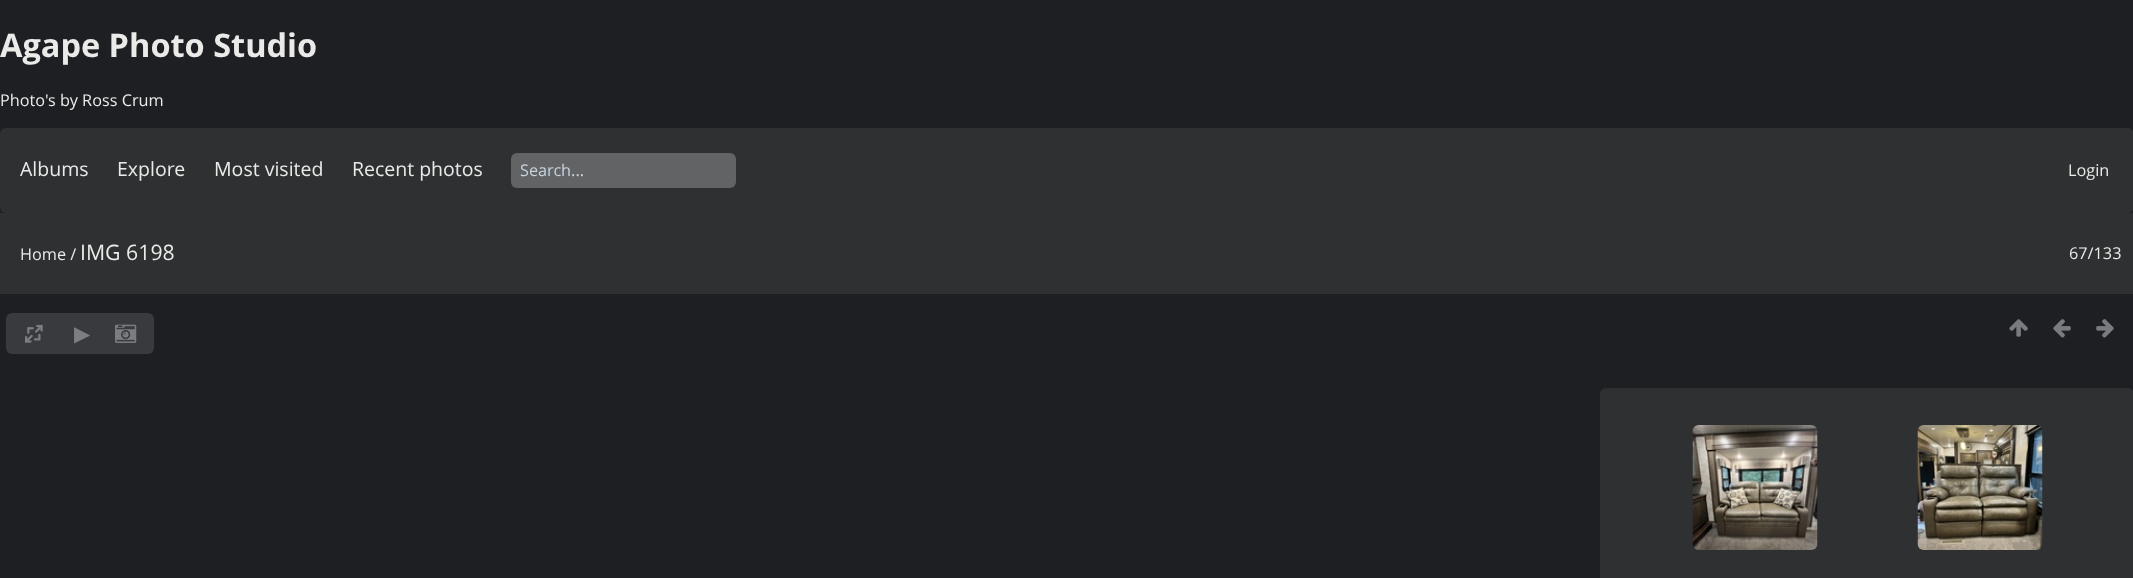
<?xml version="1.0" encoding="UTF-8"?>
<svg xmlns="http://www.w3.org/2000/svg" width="2133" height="578">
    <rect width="100%" height="100%" fill="#1E1F23"/>
    <text x="0" y="57" font-family="Open Sans" font-size="32.5" font-weight="700" fill="#EAEAE9">Agape Photo Studio</text>
    <text x="0" y="106" font-family="Open Sans" font-size="16.25" fill="#EAEAE9">Photo's by Ross Crum</text>
    <rect x="0" y="128" width="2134" height="85" rx="6" fill="#2F3032"/>
    <text x="20" y="176" font-family="Open Sans" font-size="19.5" fill="#EAEAE9">Albums</text>
    <text x="117" y="176" font-family="Open Sans" font-size="19.5" fill="#EAEAE9">Explore</text>
    <text x="214" y="176" font-family="Open Sans" font-size="19.5" fill="#EAEAE9">Most visited</text>
    <text x="352" y="176" font-family="Open Sans" font-size="19.5" fill="#EAEAE9">Recent photos</text>
    <rect x="511" y="153" width="225" height="35" rx="6" fill="#616364"/>
    <text x="520" y="176" font-family="Open Sans" font-size="16.25" fill="#C7D3E1">Search...</text>
    <text x="2068" y="176" font-family="Open Sans" font-size="16.25" fill="#EAEAE9">Login</text>
    <rect x="0" y="213" width="2133" height="81" fill="#2F3032"/>
    <text x="20" y="260" font-family="Open Sans" font-size="16.25" fill="#EAEAE9">Home /</text>
    <text x="80" y="260" font-family="Open Sans" font-size="21.25" fill="#EAEAE9">IMG 6198</text>
    <text x="2069" y="259" font-family="Open Sans" font-size="16.25" fill="#EAEAE9">67/133</text>
    <rect x="6" y="313" width="148" height="41" rx="6" fill="#393A3D"/>
    <image x="25" y="324" width="18" height="19" href="img_01.png"/>
    <text x="74" y="341" font-family="DejaVu Sans" font-size="21.25" fill="#7D7E81">▶</text>
    <image x="115" y="324" width="22" height="19" href="img_02.png"/>
    <image x="2009" y="319" width="19" height="18" href="img_03.png"/>
    <image x="2053" y="319" width="18" height="19" href="img_04.png"/>
    <image x="2096" y="319" width="18" height="19" href="img_05.png"/>
    <rect x="1600" y="388" width="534" height="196" rx="6" fill="#2F3032"/>
    <image x="1692" y="425" width="126" height="125" href="img_06.png"/>
    <image x="1917" y="425" width="126" height="125" href="img_07.png"/>
</svg>
